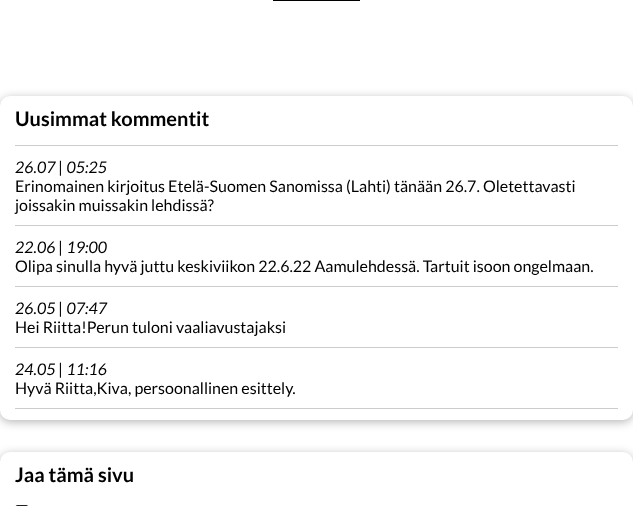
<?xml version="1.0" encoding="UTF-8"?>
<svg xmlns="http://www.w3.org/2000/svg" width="633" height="506">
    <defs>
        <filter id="blur1" x="-50%" y="-200%" width="200%" height="500%"><feGaussianBlur stdDeviation="5"/></filter>
    </defs>
    <rect width="100%" height="100%" fill="#FFFFFF"/>
    <rect x="273" y="0" width="87" height="1" fill="#000000"/>
    <rect x="0" y="98" width="633" height="324" rx="10" fill="#000000" fill-opacity="0.29" filter="url(#blur1)"/>
    <rect x="0" y="96" width="633" height="324" rx="10" fill="#FFFFFF"/>
    <text x="15" y="126" font-family="Lato" font-size="20" font-weight="700" fill="#000000">Uusimmat kommentit</text>
    <rect x="15" y="145" width="603" height="1" fill="#CCCCCC"/>
    <rect x="15" y="225" width="603" height="1" fill="#CCCCCC"/>
    <text x="15" y="173" font-family="Lato" font-size="16" font-style="italic" fill="#000000">26.07 | 05:25</text>
    <text font-family="Lato" font-size="16" fill="#000000">
        <tspan x="15" y="192">Erinomainen kirjoitus Etelä-Suomen Sanomissa (Lahti) tänään 26.7. Oletettavasti</tspan>
        <tspan x="15" y="211">joissakin muissakin lehdissä?</tspan>
    </text>
    <rect x="15" y="286" width="603" height="1" fill="#CCCCCC"/>
    <text x="15" y="253" font-family="Lato" font-size="16" font-style="italic" fill="#000000">22.06 | 19:00</text>
    <text x="15" y="272" font-family="Lato" font-size="16" fill="#000000">Olipa sinulla hyvä juttu keskiviikon 22.6.22 Aamulehdessä. Tartuit isoon ongelmaan.</text>
    <rect x="15" y="347" width="603" height="1" fill="#CCCCCC"/>
    <text x="15" y="314" font-family="Lato" font-size="16" font-style="italic" fill="#000000">26.05 | 07:47</text>
    <text x="15" y="333" font-family="Lato" font-size="16" fill="#000000">Hei Riitta!Perun tuloni vaaliavustajaksi</text>
    <rect x="15" y="408" width="603" height="1" fill="#CCCCCC"/>
    <text x="15" y="375" font-family="Lato" font-size="16" font-style="italic" fill="#000000">24.05 | 11:16</text>
    <text x="15" y="394" font-family="Lato" font-size="16" fill="#000000">Hyvä Riitta,Kiva, persoonallinen esittely.</text>
    <rect x="0" y="454" width="633" height="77" rx="10" fill="#000000" fill-opacity="0.29" filter="url(#blur1)"/>
    <rect x="0" y="452" width="633" height="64" rx="10" fill="#FFFFFF"/>
    <text x="15" y="482" font-family="Lato" font-size="20" font-weight="700" fill="#000000">Jaa tämä sivu</text>
    <image x="15" y="505" width="13" height="1" href="img_01.png"/>
</svg>
